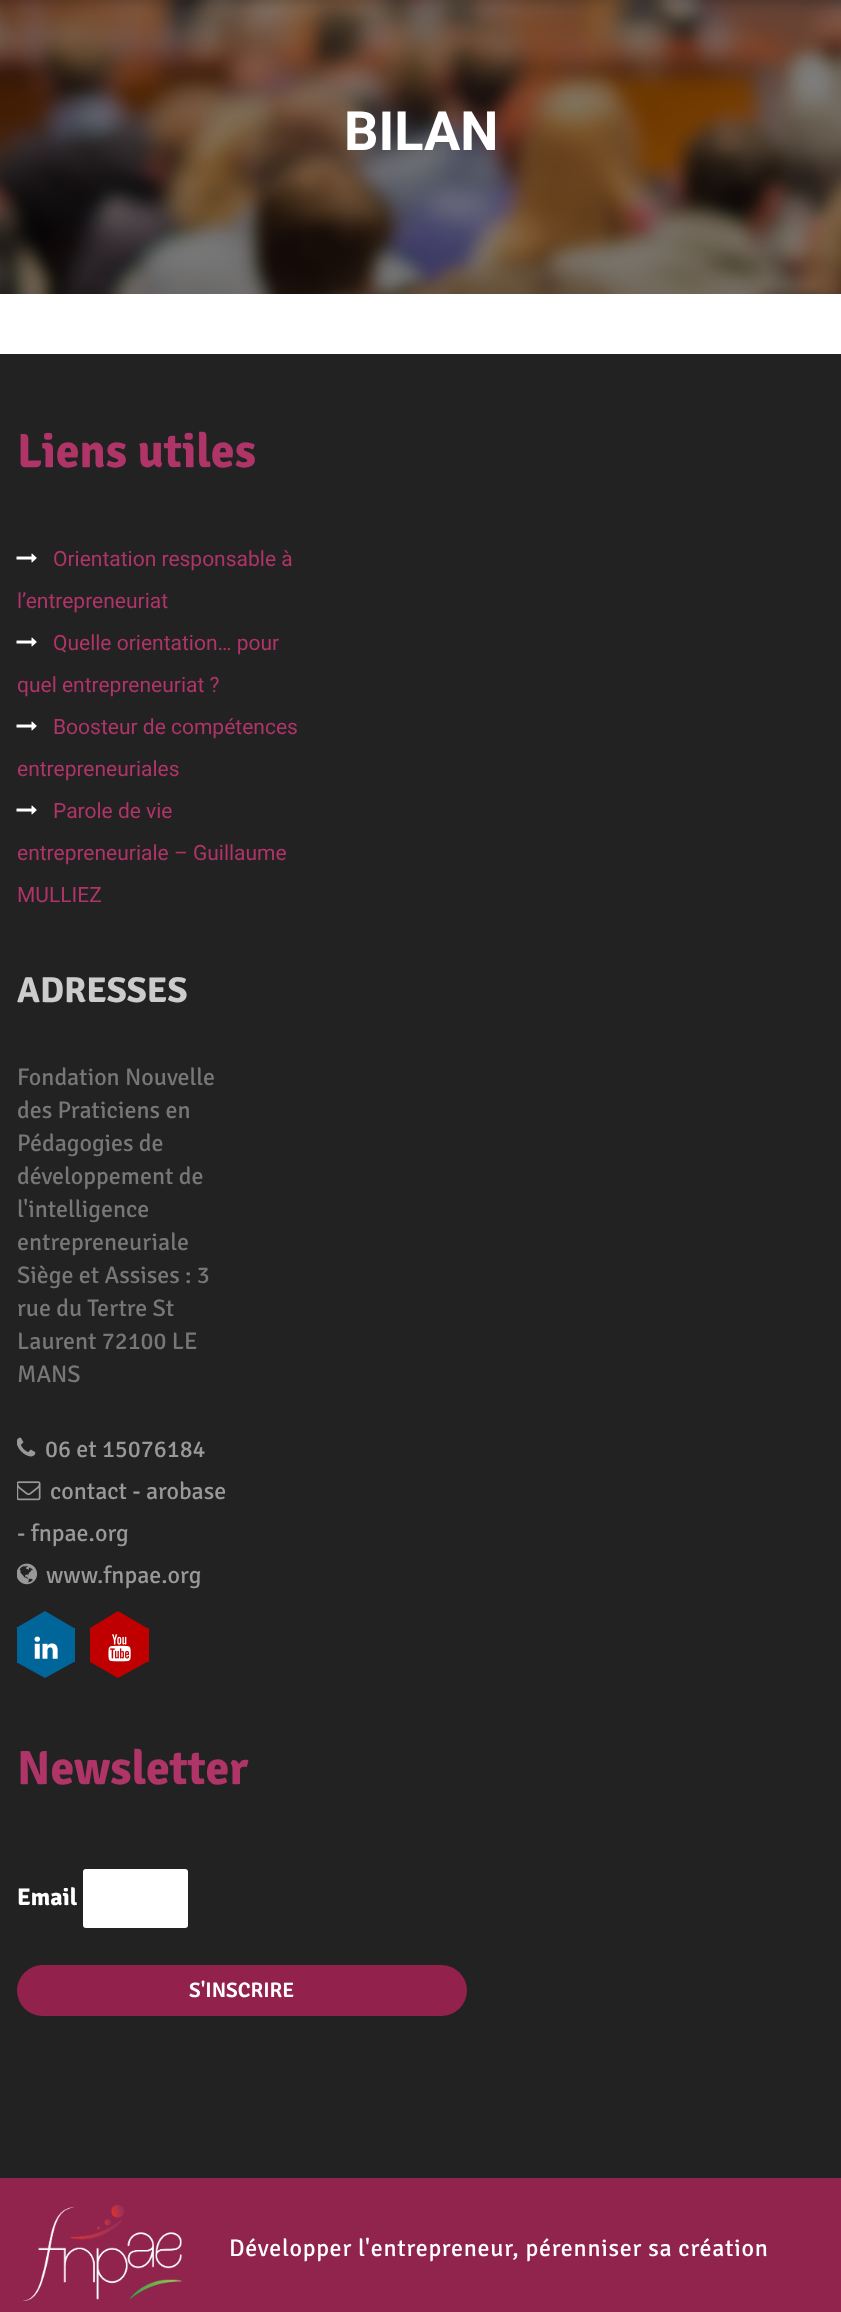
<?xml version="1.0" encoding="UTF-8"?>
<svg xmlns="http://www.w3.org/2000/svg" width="841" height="2312">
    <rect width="100%" height="100%" fill="#FFFFFF"/>
    <rect x="0" y="0" width="841" height="294" fill="#000000"/>
    <image x="0" y="0" width="841" height="294" href="img_01.png"/>
    <text x="344" y="150" font-family="Roboto" font-size="54" font-weight="700" fill="#FFFFFF">BILAN</text>
    <rect x="0" y="354" width="841" height="1824" fill="#222222"/>
    <text x="17" y="467" font-family="Signika" font-size="48" font-weight="700" fill="#AF3467">Liens utiles</text>
    <image x="16" y="553" width="21" height="10" href="img_02.png"/>
    <text x="53" y="566" font-family="Roboto" font-size="21" fill="#AF3467">Orientation responsable à</text>
    <text x="17" y="608" font-family="Roboto" font-size="21" fill="#AF3467">l’entrepreneuriat</text>
    <image x="16" y="637" width="21" height="10" href="img_02.png"/>
    <text x="53" y="650" font-family="Roboto" font-size="21" fill="#AF3467">Quelle orientation… pour</text>
    <text x="17" y="692" font-family="Roboto" font-size="21" fill="#AF3467">quel entrepreneuriat ?</text>
    <image x="16" y="721" width="21" height="10" href="img_02.png"/>
    <text x="53" y="734" font-family="Roboto" font-size="21" fill="#AF3467">Boosteur de compétences</text>
    <text x="17" y="776" font-family="Roboto" font-size="21" fill="#AF3467">entrepreneuriales</text>
    <image x="16" y="805" width="21" height="10" href="img_02.png"/>
    <text x="53" y="818" font-family="Roboto" font-size="21" fill="#AF3467">Parole de vie</text>
    <text x="17" y="860" font-family="Roboto" font-size="21" fill="#AF3467">entrepreneuriale – Guillaume</text>
    <text x="17" y="902" font-family="Roboto" font-size="21" fill="#AF3467">MULLIEZ</text>
    <text x="17" y="1002" font-family="Signika" font-size="36" font-weight="700" fill="#CCCCCC">ADRESSES</text>
    <text font-family="Signika" font-size="24" fill="#777777">
        <tspan x="17" y="1085">Fondation Nouvelle</tspan>
        <tspan x="17" y="1118">des Praticiens en</tspan>
        <tspan x="17" y="1151">Pédagogies de</tspan>
        <tspan x="17" y="1184">développement de</tspan>
        <tspan x="17" y="1217">l'intelligence</tspan>
        <tspan x="17" y="1250">entrepreneuriale</tspan>
        <tspan x="17" y="1283">Siège et Assises : 3</tspan>
        <tspan x="17" y="1316">rue du Tertre St</tspan>
        <tspan x="17" y="1349">Laurent 72100 LE</tspan>
        <tspan x="17" y="1382">MANS</tspan>
    </text>
    <image x="17" y="1437" width="19" height="20" href="img_03.png"/>
    <text x="45" y="1457" font-family="Signika" font-size="24" fill="#999999">06 et 15076184</text>
    <image x="17" y="1481" width="24" height="20" href="img_04.png"/>
    <text x="50" y="1499" font-family="Signika" font-size="24" fill="#999999">contact - arobase</text>
    <text x="17" y="1541" font-family="Signika" font-size="24" fill="#999999">- fnpae.org</text>
    <image x="17" y="1563" width="21" height="22" href="img_05.png"/>
    <text x="46" y="1583" font-family="Signika" font-size="24" fill="#999999">www.fnpae.org</text>
    <rect x="17" y="1628" width="58" height="34" fill="#006699"/>
    <path d="M 74 1628 H 16 L 45 1611 Z" fill="#006699"/>
    <image x="34" y="1636" width="24" height="23" href="img_06.png"/>
    <path d="M 16 1662 H 74 L 45 1678 Z" fill="#006699"/>
    <rect x="90" y="1628" width="59" height="34" fill="#C00000"/>
    <path d="M 147 1628 H 90 L 118 1611 Z" fill="#C00000"/>
    <image x="108" y="1634" width="23" height="28" href="img_07.png"/>
    <path d="M 90 1662 H 147 L 118 1678 Z" fill="#C00000"/>
    <text x="17" y="1784" font-family="Signika" font-size="48" font-weight="700" fill="#AF3467">Newsletter</text>
    <text x="17" y="1905" font-family="Signika" font-size="24" font-weight="700" fill="#FFFFFF">Email</text>
    <rect x="83" y="1869" width="105" height="59" rx="3" fill="#FFFFFF"/>
    <rect x="17" y="1965" width="450" height="51" rx="25.5" fill="#92214C"/>
    <text x="189" y="1997" font-family="Signika" font-size="21" font-weight="600" fill="#FFFFFF">S'INSCRIRE</text>
    <rect x="0" y="2178" width="841" height="134" fill="#90244D"/>
    <image x="22" y="2205" width="160" height="96" href="img_08.png"/>
    <text x="229" y="2256" font-family="Signika" font-size="24" letter-spacing="0.75" fill="#FFFFFF">Développer l'entrepreneur, pérenniser sa création</text>
</svg>
